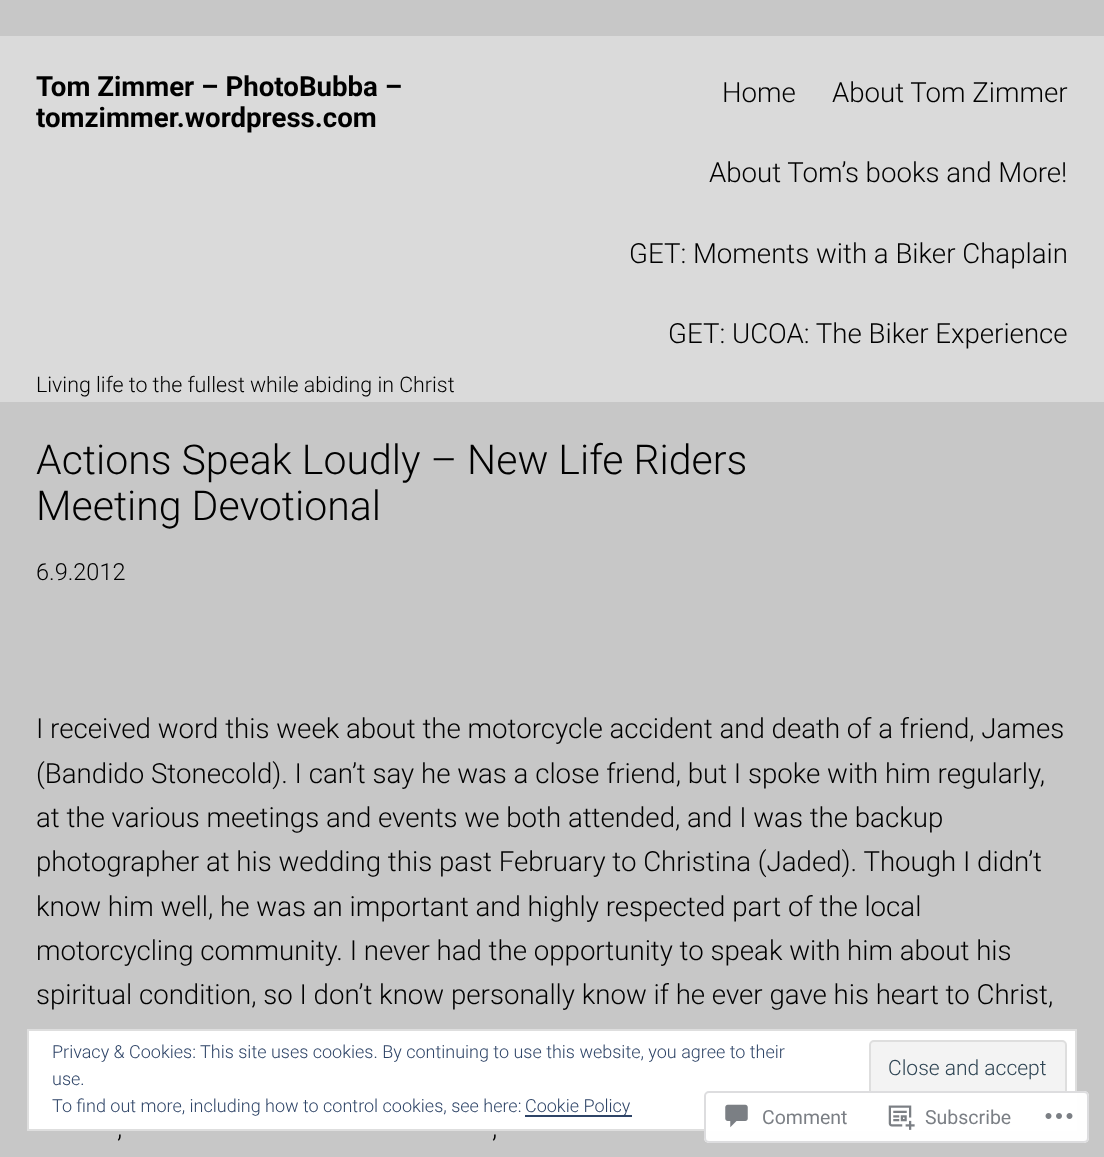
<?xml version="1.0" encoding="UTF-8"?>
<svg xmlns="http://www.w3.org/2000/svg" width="1104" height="1157">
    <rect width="100%" height="100%" fill="#C7C7C7"/>
    <rect x="0" y="36" width="1104" height="366" fill="#DADADA"/>
    <text font-family="Roboto" font-size="27.65" font-weight="700" fill="#000000">
        <tspan x="36" y="96">Tom Zimmer – PhotoBubba –</tspan>
        <tspan x="36" y="127">tomzimmer.wordpress.com</tspan>
    </text>
    <text x="722" y="102" font-family="Roboto" font-size="27.65" font-weight="300" fill="#000000">Home</text>
    <text x="832" y="102" font-family="Roboto" font-size="27.65" font-weight="300" fill="#000000">About Tom Zimmer</text>
    <text x="709" y="182" font-family="Roboto" font-size="27.65" font-weight="300" fill="#000000">About Tom’s books and More!</text>
    <text x="629" y="263" font-family="Roboto" font-size="27.65" font-weight="300" fill="#000000">GET: Moments with a Biker Chaplain</text>
    <text x="668" y="343" font-family="Roboto" font-size="27.65" font-weight="300" fill="#000000">GET: UCOA: The Biker Experience</text>
    <text x="36" y="392" font-family="Roboto" font-size="21.4" font-weight="300" fill="#000000">Living life to the fullest while abiding in Christ</text>
    <text font-family="Roboto" font-size="41" font-weight="300" fill="#000000">
        <tspan x="36" y="474">Actions Speak Loudly – New Life Riders</tspan>
        <tspan x="36" y="520">Meeting Devotional</tspan>
    </text>
    <text x="36" y="580" font-family="Roboto" font-size="23.5" font-weight="300" fill="#000000">6.9.2012</text>
    <text font-family="Roboto" font-size="27.65" font-weight="300" fill="#000000">
        <tspan x="36" y="738">I received word this week about the motorcycle accident and death of a friend, James</tspan>
        <tspan x="36" y="783">(Bandido Stonecold). I can’t say he was a close friend, but I spoke with him regularly,</tspan>
        <tspan x="36" y="827">at the various meetings and events we both attended, and I was the backup</tspan>
        <tspan x="36" y="871">photographer at his wedding this past February to Christina (Jaded). Though I didn’t</tspan>
        <tspan x="36" y="916">know him well, he was an important and highly respected part of the local</tspan>
        <tspan x="36" y="960">motorcycling community. I never had the opportunity to speak with him about his</tspan>
        <tspan x="36" y="1004">spiritual condition, so I don’t know personally know if he ever gave his heart to Christ,</tspan>
    </text>
    <text x="117" y="1137" font-family="Roboto" font-size="27.65" font-weight="300" fill="#000000">,</text>
    <text x="492" y="1137" font-family="Roboto" font-size="27.65" font-weight="300" fill="#000000">,</text>
    <rect x="28" y="1030" width="1048" height="100" fill="#FFFFFF" stroke="#DEDEDE" stroke-width="2"/>
    <text font-family="Roboto" font-size="18" font-weight="300" fill="#2E4467">
        <tspan x="52" y="1058">Privacy &amp; Cookies: This site uses cookies. By continuing to use this website, you agree to their</tspan>
        <tspan x="52" y="1085">use.</tspan>
    </text>
    <rect x="870" y="1041" width="196" height="56" rx="4" fill="#F3F3F3" stroke="#DEDEDE" stroke-width="2"/>
    <text x="888" y="1075" font-family="Roboto" font-size="21" font-weight="300" fill="#2E4453">Close and accept</text>
    <text x="52" y="1112" font-family="Roboto" font-size="18" font-weight="300" fill="#2E4467">To find out more, including how to control cookies, see here:</text>
    <rect x="525" y="1115" width="107" height="2" fill="#2E4467"/>
    <text x="525" y="1112" font-family="Roboto" font-size="18" font-weight="300" fill="#2E4467">Cookie Policy</text>
    <rect x="704" y="1091" width="385" height="52" rx="5" fill="#FFFFFF" fill-opacity="0.98"/>
    <rect x="705" y="1092" width="383" height="50" rx="4" fill="none" stroke="#DCDCDE" stroke-opacity="0.98" stroke-width="2"/>
    <image x="725" y="1104" width="23" height="24" href="img_01.png"/>
    <text x="762" y="1124" font-family="Roboto" font-size="19.5" fill="#7B7F85">Comment</text>
    <image x="888" y="1105" width="27" height="25" href="img_02.png"/>
    <text x="925" y="1124" font-family="Roboto" font-size="19.5" fill="#7B7F85">Subscribe</text>
    <image x="1045" y="1113" width="28" height="6" href="img_03.png"/>
</svg>
